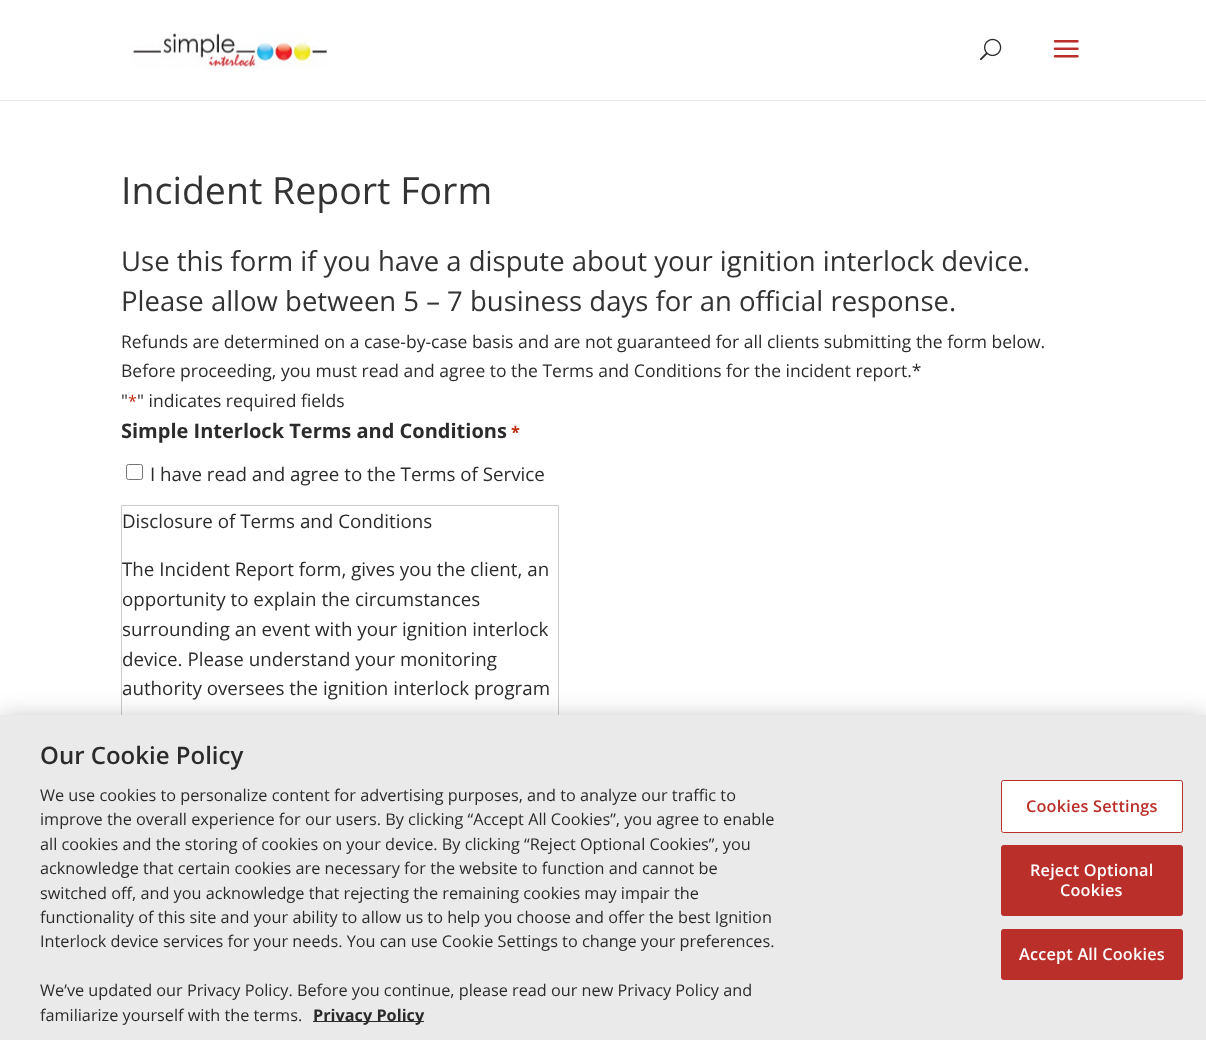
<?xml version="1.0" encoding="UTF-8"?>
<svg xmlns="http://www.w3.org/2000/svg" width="1206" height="1040">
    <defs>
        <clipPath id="clip1"><rect x="123" y="506" width="435" height="248"/></clipPath>
        <filter id="blur1" x="-50%" y="-200%" width="200%" height="500%"><feGaussianBlur stdDeviation="11"/></filter>
    </defs>
    <rect width="100%" height="100%" fill="#FFFFFF"/>
    <rect x="0" y="100" width="1206" height="1" fill="#E6E6E6"/>
    <image x="131" y="33" width="196" height="36" href="img_01.png"/>
    <image x="980" y="38" width="22" height="23" href="img_02.png"/>
    <image x="1053" y="40" width="26" height="18" href="img_03.png"/>
    <text x="121" y="204" font-family="Open Sans" font-size="37.5" fill="#333333">Incident Report Form</text>
    <text font-family="Open Sans" font-size="27.5" fill="#333333">
        <tspan x="121" y="271">Use this form if you have a dispute about your ignition interlock device.</tspan>
        <tspan x="121" y="311">Please allow between 5 – 7 business days for an official response.</tspan>
    </text>
    <text font-family="Open Sans" font-size="17.5" fill="#2B2B2B">
        <tspan x="121" y="348">Refunds are determined on a case-by-case basis and are not guaranteed for all clients submitting the form below.</tspan>
        <tspan x="121" y="377">Before proceeding, you must read and agree to the Terms and Conditions for the incident report.*</tspan>
        <tspan x="121" y="407">"</tspan>
    </text>
    <text x="128" y="407" font-family="Open Sans" font-size="16.25" fill="#C02B0A">*</text>
    <text x="137" y="407" font-family="Open Sans" font-size="17.5" fill="#2B2B2B">" indicates required fields</text>
    <text x="121" y="438" font-family="Open Sans" font-size="20" font-weight="700" fill="#2B2B2B">Simple Interlock Terms and Conditions</text>
    <text x="511" y="438" font-family="Open Sans" font-size="16.25" font-weight="700" fill="#C02B0A">*</text>
    <rect x="126.5" y="464.5" width="16" height="15" rx="2" fill="none" stroke="#767676"/>
    <text x="150" y="481" font-family="Open Sans" font-size="18.75" fill="#2B2B2B">I have read and agree to the Terms of Service</text>
    <rect x="121.5" y="505.5" width="437" height="249" fill="none" stroke="#CCCCCC"/>
    <text x="122" y="528" font-family="Open Sans" font-size="18.75" fill="#2B2B2B">Disclosure of Terms and Conditions</text>
    <text font-family="Open Sans" font-size="18.75" fill="#2B2B2B">
        <tspan x="122" y="576">The Incident Report form, gives you the client, an</tspan>
        <tspan x="122" y="606">opportunity to explain the circumstances</tspan>
    </text>
    <g clip-path="url(#clip1)">
        <text x="122" y="636" font-family="Open Sans" font-size="18.75" fill="#2B2B2B">surrounding an event with your ignition interlock</text>
    </g>
    <text font-family="Open Sans" font-size="18.75" fill="#2B2B2B">
        <tspan x="122" y="666">device. Please understand your monitoring</tspan>
        <tspan x="122" y="695">authority oversees the ignition interlock program</tspan>
    </text>
    <rect x="0" y="715" width="1206" height="325" fill="#000000" fill-opacity="0.2" filter="url(#blur1)"/>
    <rect x="0" y="715" width="1206" height="325" fill="#EAEAEA"/>
    <text x="40" y="764" font-family="Open Sans" font-size="24" font-weight="600" fill="#2B2B2B">Our Cookie Policy</text>
    <text font-family="Open Sans" font-size="16.25" fill="#2B2B2B">
        <tspan x="40" y="801">We use cookies to personalize content for advertising purposes, and to analyze our traffic to</tspan>
        <tspan x="40" y="825">improve the overall experience for our users. By clicking “Accept All Cookies”, you agree to enable</tspan>
        <tspan x="40" y="850">all cookies and the storing of cookies on your device. By clicking “Reject Optional Cookies”, you</tspan>
        <tspan x="40" y="874">acknowledge that certain cookies are necessary for the website to function and cannot be</tspan>
        <tspan x="40" y="899">switched off, and you acknowledge that rejecting the remaining cookies may impair the</tspan>
        <tspan x="40" y="923">functionality of this site and your ability to allow us to help you choose and offer the best Ignition</tspan>
        <tspan x="40" y="947">Interlock device services for your needs. You can use Cookie Settings to change your preferences.</tspan>
    </text>
    <text font-family="Open Sans" font-size="16.25" fill="#2B2B2B">
        <tspan x="40" y="996">We’ve updated our Privacy Policy. Before you continue, please read our new Privacy Policy and</tspan>
        <tspan x="40" y="1021">familiarize yourself with the terms.</tspan>
    </text>
    <rect x="313" y="1021" width="111" height="1" fill="#2B2B2B"/>
    <text x="313" y="1021" font-family="Open Sans" font-size="16.25" font-weight="700" fill="#2B2B2B">Privacy Policy</text>
    <rect x="1001.5" y="780.5" width="181" height="52" rx="2" fill="#FFFFFF" stroke="#BA2F2A"/>
    <text x="1026" y="812" font-family="Open Sans" font-size="16.25" font-weight="600" letter-spacing="0.2" fill="#BA2F2A">Cookies Settings</text>
    <rect x="1001.5" y="845.5" width="181" height="70" rx="2" fill="#BA2F2A" stroke="#BA2F2A"/>
    <text x="1030" y="876" font-family="Open Sans" font-size="16.25" font-weight="600" letter-spacing="0.2" fill="#FFFFFF">Reject Optional</text>
    <text x="1060" y="896" font-family="Open Sans" font-size="16.25" font-weight="600" letter-spacing="0.2" fill="#FFFFFF">Cookies</text>
    <rect x="1001.5" y="929.5" width="181" height="50" rx="2" fill="#BA2F2A" stroke="#BA2F2A"/>
    <text x="1019" y="960" font-family="Open Sans" font-size="16.25" font-weight="600" letter-spacing="0.2" fill="#FFFFFF">Accept All Cookies</text>
</svg>
